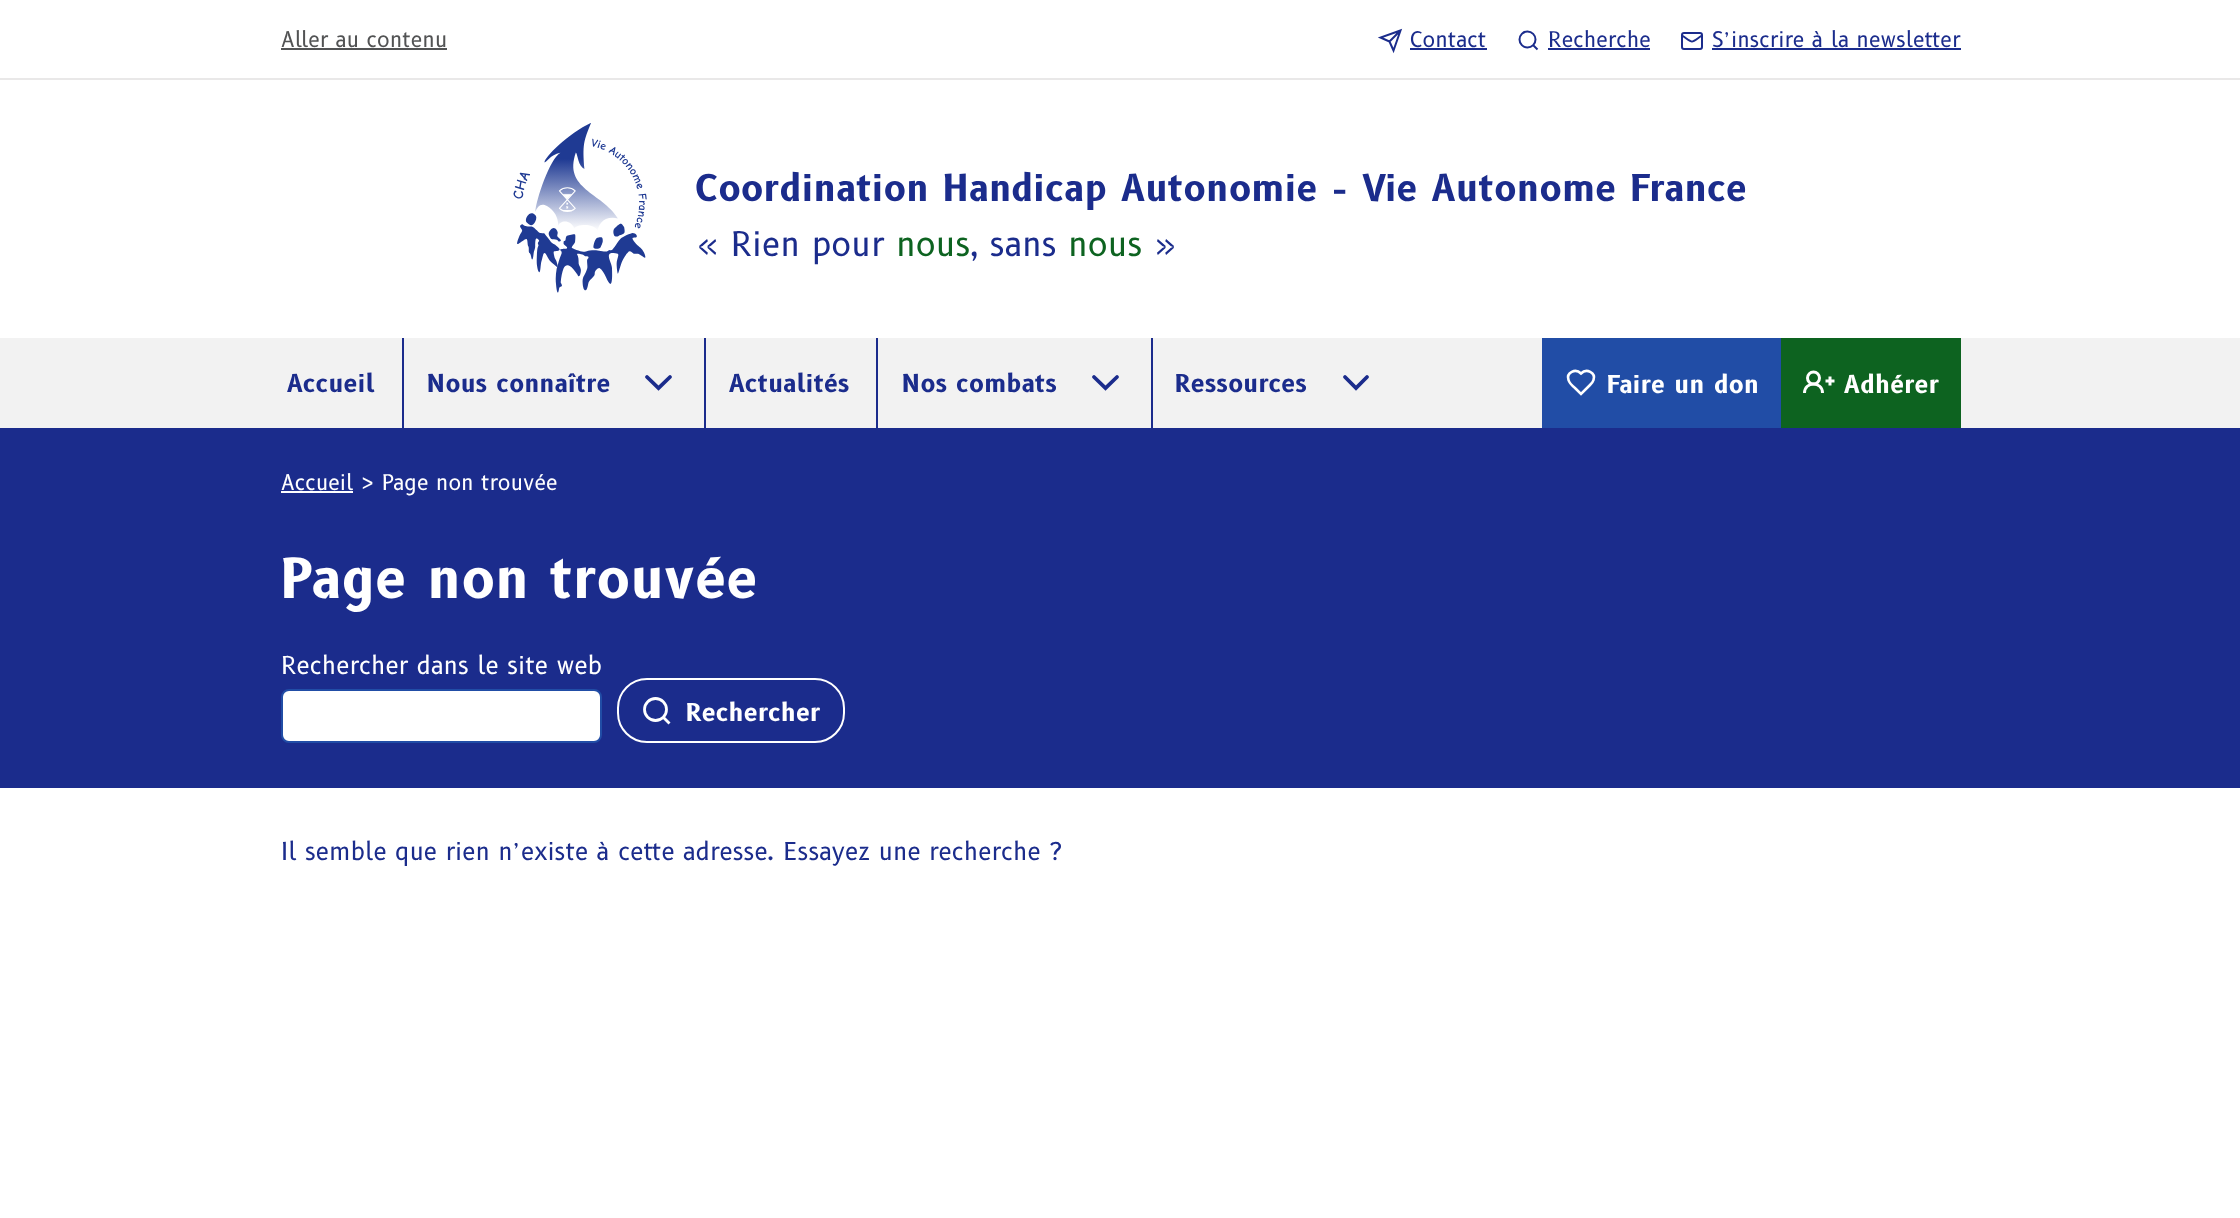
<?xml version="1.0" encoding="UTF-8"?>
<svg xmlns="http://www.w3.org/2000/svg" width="2240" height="1218">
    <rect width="100%" height="100%" fill="#FFFFFF"/>
    <rect x="0" y="78" width="2240" height="2" fill="#E9E8E8"/>
    <text x="281" y="47" font-family="'B612'" font-size="21" fill="#525354">Aller au contenu</text>
    <rect x="281" y="48" width="166" height="2" fill="#525354"/>
    <path d="M 1400.5 30.5 L 1393.5 50.5 L 1389.5 41.5 L 1380.5 37.5 Z M 1400.5 30.5 L 1389.5 41.5" fill="none" stroke="#1B2C8C" stroke-width="2"/>
    <text x="1410" y="47" font-family="'B612'" font-size="21" fill="#1B2C8C">Contact</text>
    <rect x="1410" y="48" width="77" height="2" fill="#1B2C8C"/>
    <circle cx="1527.5" cy="39.5" r="8" fill="none" stroke="#1B2C8C" stroke-width="2"/>
    <path d="M 1537.5 49.5 L 1533 45" fill="none" stroke="#1B2C8C" stroke-width="2"/>
    <text x="1548" y="47" font-family="'B612'" font-size="21" fill="#1B2C8C">Recherche</text>
    <rect x="1548" y="48" width="102" height="2" fill="#1B2C8C"/>
    <rect x="1682" y="33" width="20" height="16" rx="2" fill="none" stroke="#1B2C8C" stroke-width="2"/>
    <path d="M 1702 35.5 C 1690 43.5 1694 43.5 1682 35.5" fill="none" stroke="#1B2C8C" stroke-width="2"/>
    <text x="1712" y="47" font-family="'B612'" font-size="21" fill="#1B2C8C">S’inscrire à la newsletter</text>
    <rect x="1712" y="48" width="249" height="2" fill="#1B2C8C"/>
    <image x="513" y="123" width="134" height="170" href="img_01.png"/>
    <text x="696" y="201" font-family="'B612'" font-size="36" font-weight="700" letter-spacing="1.08" fill="#1B2C8C">Coordination Handicap Autonomie - Vie Autonome France</text>
    <text x="696" y="256" font-family="'B612'" font-size="33" fill="#1B2C8C">« Rien pour</text>
    <text x="896" y="256" font-family="'B612'" font-size="33" fill="#0D6320">nous</text>
    <text x="970" y="256" font-family="'B612'" font-size="33" fill="#1B2C8C">, sans</text>
    <text x="1068" y="256" font-family="'B612'" font-size="33" fill="#0D6320">nous</text>
    <text x="1154" y="256" font-family="'B612'" font-size="33" fill="#1B2C8C">»</text>
    <rect x="0" y="338" width="2240" height="90" fill="#F2F2F2"/>
    <rect x="402" y="338" width="2" height="90" fill="#1B2C8C"/>
    <text x="287" y="392" font-family="'B612'" font-size="24" font-weight="700" letter-spacing="0.75" fill="#1B2C8C">Accueil</text>
    <rect x="704" y="338" width="2" height="90" fill="#1B2C8C"/>
    <text x="427" y="392" font-family="'B612'" font-size="24" font-weight="700" letter-spacing="0.75" fill="#1B2C8C">Nous connaître</text>
    <path d="M 647 377 L 658.5 388 L 670 377" fill="none" stroke="#1B2C8C" stroke-width="3.8" stroke-linecap="round"/>
    <rect x="876" y="338" width="2" height="90" fill="#1B2C8C"/>
    <text x="729" y="392" font-family="'B612'" font-size="24" font-weight="700" letter-spacing="0.75" fill="#1B2C8C">Actualités</text>
    <rect x="1151" y="338" width="2" height="90" fill="#1B2C8C"/>
    <text x="902" y="392" font-family="'B612'" font-size="24" font-weight="700" letter-spacing="0.75" fill="#1B2C8C">Nos combats</text>
    <path d="M 1094 377 L 1105.5 388 L 1117 377" fill="none" stroke="#1B2C8C" stroke-width="3.8" stroke-linecap="round"/>
    <text x="1175" y="392" font-family="'B612'" font-size="24" font-weight="700" letter-spacing="0.75" fill="#1B2C8C">Ressources</text>
    <path d="M 1345 377 L 1356 388 L 1367 377" fill="none" stroke="#1B2C8C" stroke-width="3.8" stroke-linecap="round"/>
    <rect x="1542" y="338" width="239" height="90" fill="#214DA6"/>
    <path d="M 1590 385 C 1591.5 383.5 1593 382 1593.5 380 C 1596 372.5 1586.5 368 1581 373.5 C 1575.5 368 1566 372.5 1568.5 380 C 1569.5 383.5 1572.5 386 1575 388 L 1581 394 Z" fill="none" stroke="#FFFFFF" stroke-width="2.6"/>
    <text x="1607" y="393" font-family="'B612'" font-size="24" font-weight="700" letter-spacing="0.75" fill="#FFFFFF">Faire un don</text>
    <rect x="1781" y="338" width="180" height="90" fill="#0D6320"/>
    <path d="M 1822.5 393 C 1822.5 381 1804.5 381 1804.5 393" fill="none" stroke="#FFFFFF" stroke-width="3"/>
    <circle cx="1813.5" cy="378" r="6" fill="none" stroke="#FFFFFF" stroke-width="3"/>
    <path d="M 1830 376.5 V 385.5 M 1834.5 381 H 1825.5" fill="none" stroke="#FFFFFF" stroke-width="3"/>
    <text x="1844" y="393" font-family="'B612'" font-size="24" font-weight="700" letter-spacing="0.75" fill="#FFFFFF">Adhérer</text>
    <rect x="0" y="428" width="2240" height="360" fill="#1B2C8C"/>
    <rect x="281" y="491" width="72" height="2" fill="#FFFFFF"/>
    <text x="281" y="490" font-family="'B612'" font-size="21" fill="#FFFFFF">Accueil &gt; Page non trouvée</text>
    <text x="281" y="598" font-family="'B612'" font-size="54" font-weight="700" letter-spacing="1.6" fill="#FFFFFF">Page non trouvée</text>
    <text x="281" y="674" font-family="'B612'" font-size="24" fill="#FFFFFF">Rechercher dans le site web</text>
    <rect x="282" y="690" width="319" height="52" rx="7" fill="#FFFFFF" stroke="#214DA6" stroke-width="2"/>
    <rect x="618" y="679" width="226" height="63" rx="29" fill="none" stroke="#FFFFFF" stroke-width="2"/>
    <circle cx="655.5" cy="709.5" r="11" fill="none" stroke="#FFFFFF" stroke-width="2.8"/>
    <path d="M 669.5 723.5 L 663.5 717.5" fill="none" stroke="#FFFFFF" stroke-width="2.8"/>
    <text x="686" y="721" font-family="'B612'" font-size="24" font-weight="700" letter-spacing="0.75" fill="#FFFFFF">Rechercher</text>
    <text x="281" y="860" font-family="'B612'" font-size="24" fill="#1B2C8C">Il semble que rien n’existe à cette adresse. Essayez une recherche ?</text>
</svg>
